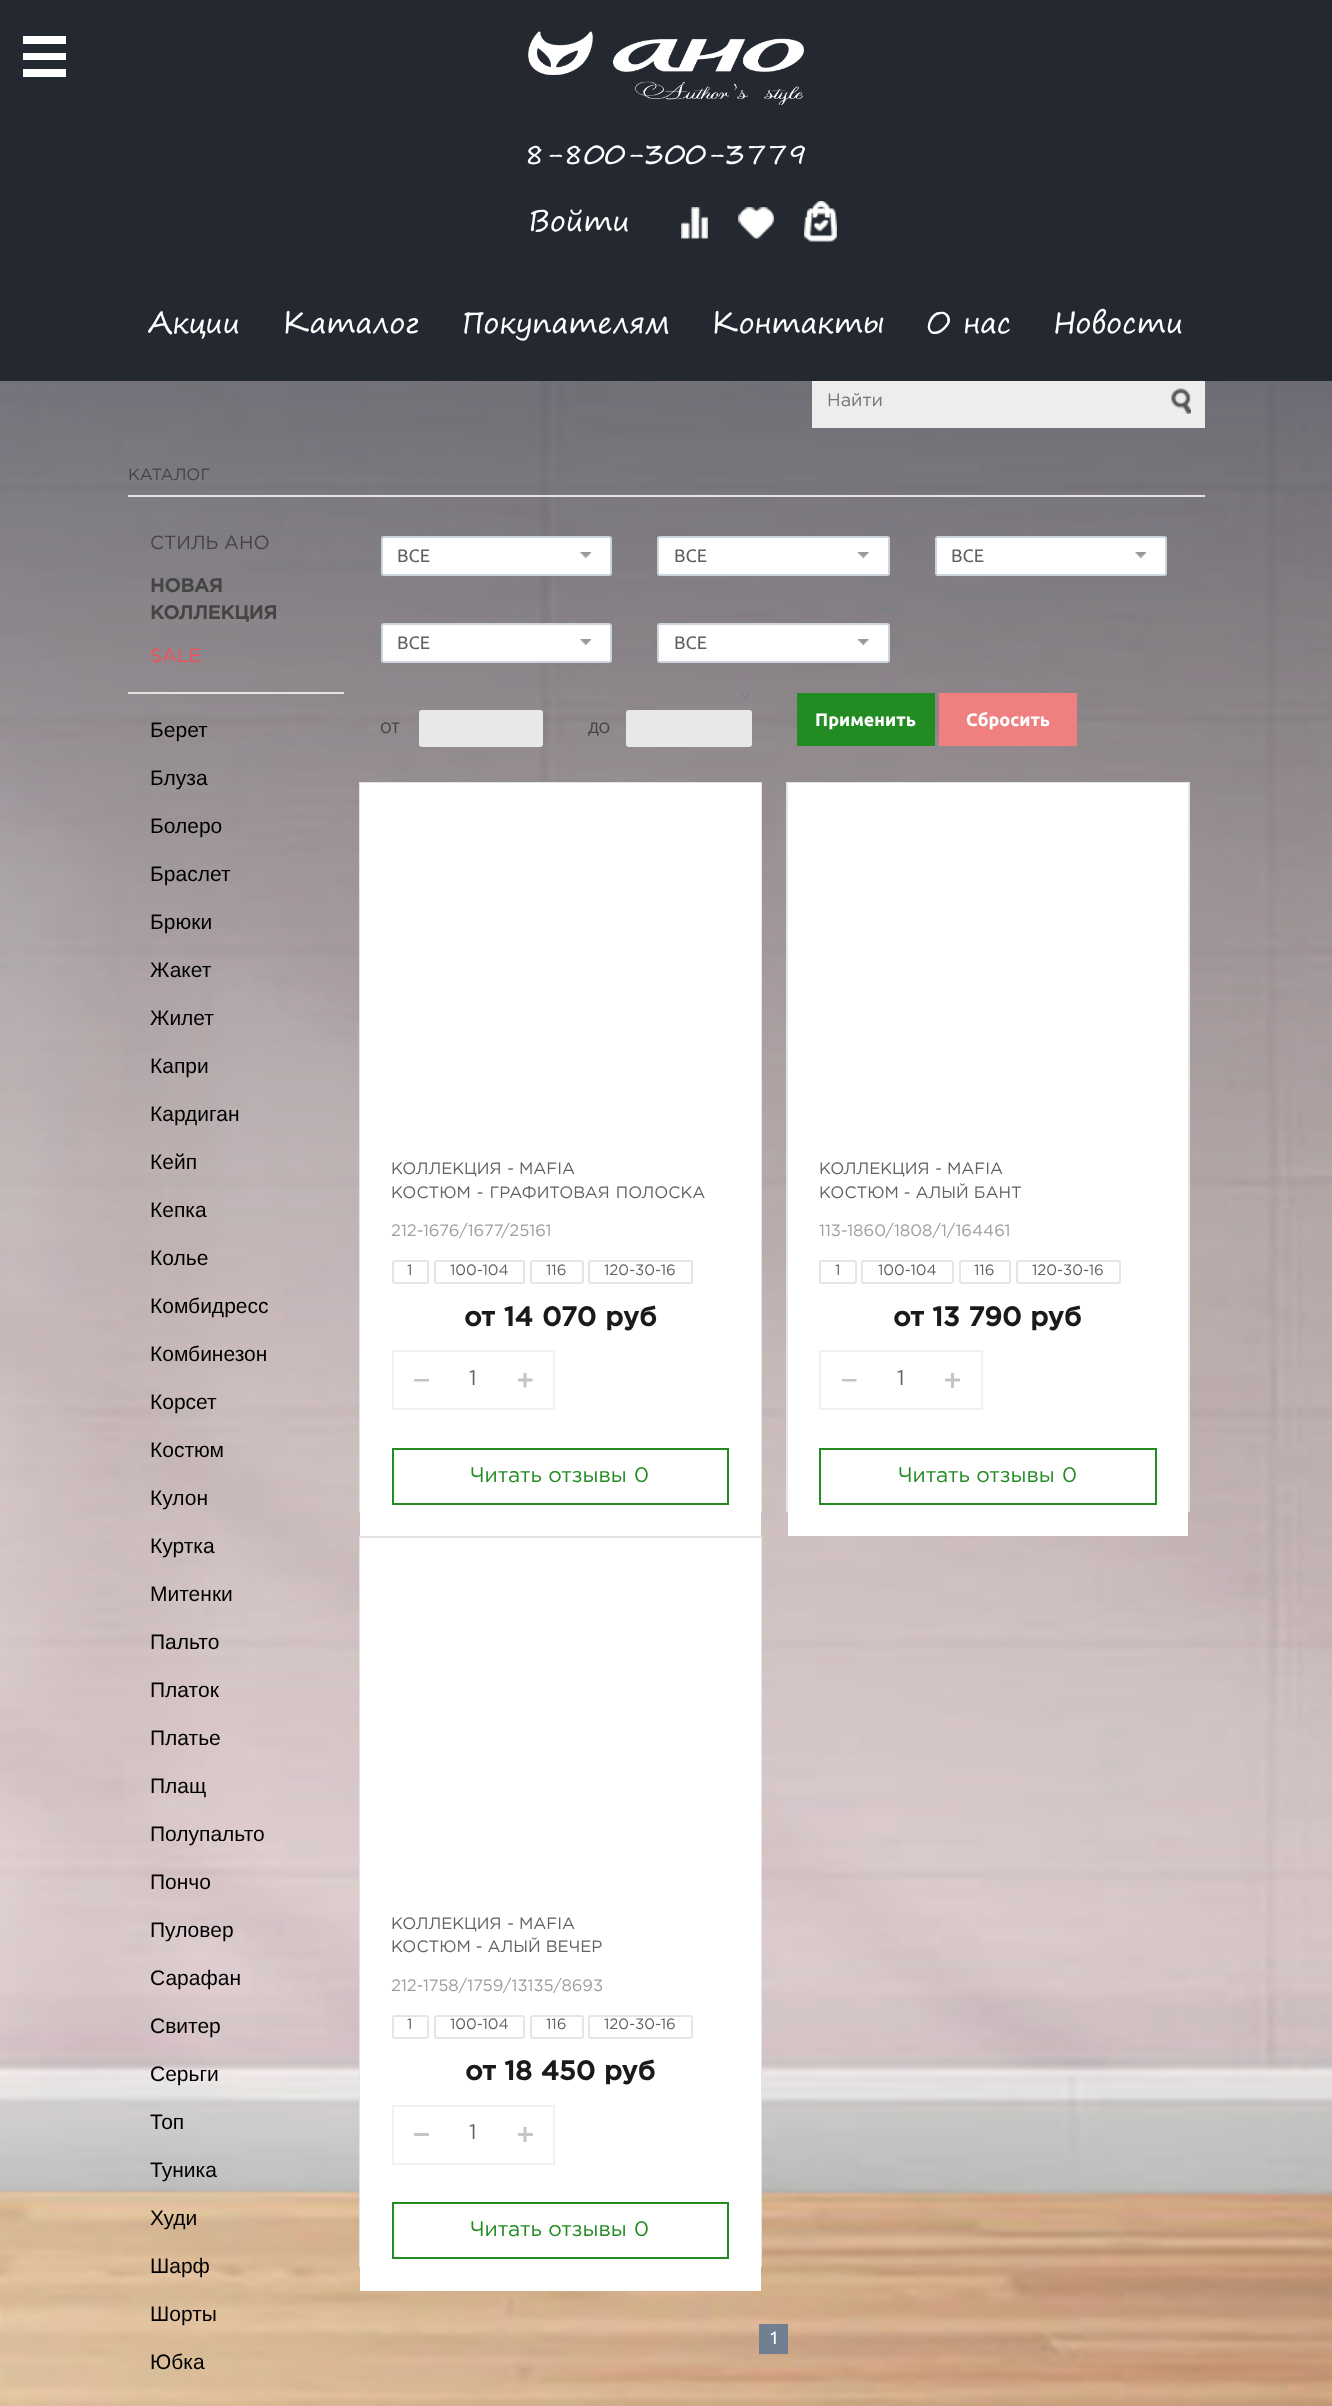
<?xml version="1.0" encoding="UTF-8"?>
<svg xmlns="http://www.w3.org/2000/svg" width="1332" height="2406">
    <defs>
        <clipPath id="clip1"><rect x="414" y="1379" width="15" height="3"/></clipPath>
        <clipPath id="clip2"><rect x="518" y="1373" width="15" height="15"/></clipPath>
        <clipPath id="clip3"><rect x="842" y="1379" width="15" height="3"/></clipPath>
    </defs>
    <rect width="100%" height="100%" fill="#FFFFFF"/>
    <rect x="0" y="0" width="1332" height="381" fill="#242831"/>
    <rect x="23" y="36" width="43" height="8" fill="#FFFFFF"/>
    <rect x="23" y="53" width="43" height="7" fill="#FFFFFF"/>
    <rect x="23" y="69" width="43" height="8" fill="#FFFFFF"/>
    <image x="528" y="31" width="276" height="74" href="img_01.png"/>
    <text x="524" y="164" font-family="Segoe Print" font-size="28.5" fill="#FFFFFF">8-800-300-3779</text>
    <text x="528" y="231" font-family="Segoe Print" font-size="28.5" fill="#FFFFFF">Войти</text>
    <image x="681" y="207" width="27" height="32" href="img_02.png"/>
    <image x="738" y="207" width="36" height="32" href="img_03.png"/>
    <image x="804" y="201" width="33" height="41" href="img_04.png"/>
    <text x="148" y="333" font-family="Segoe Print" font-size="28.5" fill="#FFFFFF">Акции</text>
    <text x="282" y="333" font-family="Segoe Print" font-size="28.5" fill="#FFFFFF">Каталог</text>
    <text x="462" y="333" font-family="Segoe Print" font-size="28.5" fill="#FFFFFF">Покупателям</text>
    <text x="711" y="333" font-family="Segoe Print" font-size="28.5" fill="#FFFFFF">Контакты</text>
    <text x="926" y="333" font-family="Segoe Print" font-size="28.5" fill="#FFFFFF">О нас</text>
    <text x="1053" y="333" font-family="Segoe Print" font-size="28.5" fill="#FFFFFF">Новости</text>
    <image x="0" y="381" width="1332" height="2025" href="img_05.png"/>
    <rect x="812" y="381" width="393" height="47" fill="#EDEDED"/>
    <text x="827" y="406" font-family="Gotham" font-size="18" fill="#757575">Найти</text>
    <image x="1171" y="388" width="20" height="26" href="img_06.png"/>
    <rect x="128" y="495" width="1077" height="2" fill="#E4E4E4"/>
    <text x="128" y="480" font-family="Gotham" font-size="16.5" fill="#444444">КАТАЛОГ</text>
    <rect x="128" y="692" width="216" height="2" fill="#E4E4E4"/>
    <text x="150" y="549" font-family="Gotham" font-size="19" fill="#444444">СТИЛЬ АНО</text>
    <text font-family="Gotham" font-size="19" font-weight="700" fill="#444444">
        <tspan x="150" y="592">НОВАЯ</tspan>
        <tspan x="150" y="619">КОЛЛЕКЦИЯ</tspan>
    </text>
    <text x="150" y="662" font-family="Gotham" font-size="19" fill="#F45057">SALE</text>
    <text x="150" y="737" font-family="Liberation Sans" font-size="21" fill="#000000">Берет</text>
    <text x="150" y="785" font-family="Liberation Sans" font-size="21" fill="#000000">Блуза</text>
    <text x="150" y="833" font-family="Liberation Sans" font-size="21" fill="#000000">Болеро</text>
    <text x="150" y="881" font-family="Liberation Sans" font-size="21" fill="#000000">Браслет</text>
    <text x="150" y="929" font-family="Liberation Sans" font-size="21" fill="#000000">Брюки</text>
    <text x="150" y="977" font-family="Liberation Sans" font-size="21" fill="#000000">Жакет</text>
    <text x="150" y="1025" font-family="Liberation Sans" font-size="21" fill="#000000">Жилет</text>
    <text x="150" y="1073" font-family="Liberation Sans" font-size="21" fill="#000000">Капри</text>
    <text x="150" y="1121" font-family="Liberation Sans" font-size="21" fill="#000000">Кардиган</text>
    <text x="150" y="1169" font-family="Liberation Sans" font-size="21" fill="#000000">Кейп</text>
    <text x="150" y="1217" font-family="Liberation Sans" font-size="21" fill="#000000">Кепка</text>
    <text x="150" y="1265" font-family="Liberation Sans" font-size="21" fill="#000000">Колье</text>
    <text x="150" y="1313" font-family="Liberation Sans" font-size="21" fill="#000000">Комбидресс</text>
    <text x="150" y="1361" font-family="Liberation Sans" font-size="21" fill="#000000">Комбинезон</text>
    <text x="150" y="1409" font-family="Liberation Sans" font-size="21" fill="#000000">Корсет</text>
    <text x="150" y="1457" font-family="Liberation Sans" font-size="21" fill="#000000">Костюм</text>
    <text x="150" y="1505" font-family="Liberation Sans" font-size="21" fill="#000000">Кулон</text>
    <text x="150" y="1553" font-family="Liberation Sans" font-size="21" fill="#000000">Куртка</text>
    <text x="150" y="1601" font-family="Liberation Sans" font-size="21" fill="#000000">Митенки</text>
    <text x="150" y="1649" font-family="Liberation Sans" font-size="21" fill="#000000">Пальто</text>
    <text x="150" y="1697" font-family="Liberation Sans" font-size="21" fill="#000000">Платок</text>
    <text x="150" y="1745" font-family="Liberation Sans" font-size="21" fill="#000000">Платье</text>
    <text x="150" y="1793" font-family="Liberation Sans" font-size="21" fill="#000000">Плащ</text>
    <text x="150" y="1841" font-family="Liberation Sans" font-size="21" fill="#000000">Полупальто</text>
    <text x="150" y="1889" font-family="Liberation Sans" font-size="21" fill="#000000">Пончо</text>
    <text x="150" y="1937" font-family="Liberation Sans" font-size="21" fill="#000000">Пуловер</text>
    <text x="150" y="1985" font-family="Liberation Sans" font-size="21" fill="#000000">Сарафан</text>
    <text x="150" y="2033" font-family="Liberation Sans" font-size="21" fill="#000000">Свитер</text>
    <text x="150" y="2081" font-family="Liberation Sans" font-size="21" fill="#000000">Серьги</text>
    <text x="150" y="2129" font-family="Liberation Sans" font-size="21" fill="#000000">Топ</text>
    <text x="150" y="2177" font-family="Liberation Sans" font-size="21" fill="#000000">Туника</text>
    <text x="150" y="2225" font-family="Liberation Sans" font-size="21" fill="#000000">Худи</text>
    <text x="150" y="2273" font-family="Liberation Sans" font-size="21" fill="#000000">Шарф</text>
    <text x="150" y="2321" font-family="Liberation Sans" font-size="21" fill="#000000">Шорты</text>
    <text x="150" y="2369" font-family="Liberation Sans" font-size="21" fill="#000000">Юбка</text>
    <image x="602" y="519" width="10" height="6" href="img_07.png"/>
    <rect x="382" y="537" width="229" height="38" rx="2" fill="#FFFFFF" stroke="#CCD5DB" stroke-width="2"/>
    <text x="397" y="562" font-family="Ubuntu" font-size="18" fill="#616161">ВСЕ</text>
    <image x="580" y="552" width="11" height="6" href="img_08.png"/>
    <image x="880" y="519" width="10" height="6" href="img_09.png"/>
    <rect x="658" y="537" width="231" height="38" rx="2" fill="#FFFFFF" stroke="#CCD5DB" stroke-width="2"/>
    <text x="674" y="562" font-family="Ubuntu" font-size="18" fill="#616161">ВСЕ</text>
    <image x="858" y="552" width="11" height="6" href="img_10.png"/>
    <image x="1156" y="519" width="10" height="6" href="img_11.png"/>
    <rect x="936" y="537" width="230" height="38" rx="2" fill="#FFFFFF" stroke="#CCD5DB" stroke-width="2"/>
    <text x="951" y="562" font-family="Ubuntu" font-size="18" fill="#616161">ВСЕ</text>
    <image x="1135" y="552" width="11" height="6" href="img_08.png"/>
    <image x="602" y="606" width="10" height="6" href="img_12.png"/>
    <rect x="382" y="624" width="229" height="38" rx="2" fill="#FFFFFF" stroke="#CCD5DB" stroke-width="2"/>
    <text x="397" y="649" font-family="Ubuntu" font-size="18" fill="#616161">ВСЕ</text>
    <image x="580" y="639" width="11" height="6" href="img_08.png"/>
    <image x="880" y="606" width="10" height="6" href="img_13.png"/>
    <rect x="658" y="624" width="231" height="38" rx="2" fill="#FFFFFF" stroke="#CCD5DB" stroke-width="2"/>
    <text x="674" y="649" font-family="Ubuntu" font-size="18" fill="#616161">ВСЕ</text>
    <image x="858" y="639" width="11" height="6" href="img_10.png"/>
    <image x="740" y="693" width="10" height="6" href="img_14.png"/>
    <text x="380" y="733" font-family="Ubuntu" font-size="15" fill="#444444">ОТ</text>
    <rect x="419" y="710" width="124" height="37" rx="3" fill="#E8E8E8"/>
    <text x="588" y="733" font-family="Ubuntu" font-size="15" fill="#444444">ДО</text>
    <rect x="626" y="710" width="126" height="37" rx="3" fill="#E8E8E8"/>
    <rect x="797" y="693" width="138" height="53" fill="#228B22"/>
    <text x="815" y="726" font-family="Ubuntu" font-size="18" font-weight="700" fill="#FFFFFF">Применить</text>
    <rect x="939" y="693" width="138" height="53" fill="#F08080"/>
    <text x="966" y="726" font-family="Ubuntu" font-size="18" font-weight="700" fill="#FFFFFF">Сбросить</text>
    <rect x="360" y="783" width="401" height="728" fill="none" stroke="#E4E4E4" stroke-width="2"/>
    <rect x="360" y="783" width="401" height="753" fill="#FFFFFF"/>
    <text x="391" y="1174" word-spacing="1" font-family="Gotham" font-size="16.5" fill="#616161">КОЛЛЕКЦИЯ -</text>
    <text x="519" y="1174" font-family="Gotham" font-size="16.5" fill="#616161">MAFIA</text>
    <text x="391" y="1198" word-spacing="1" font-family="Gotham" font-size="16.5" fill="#616161">КОСТЮМ - ГРАФИТОВАЯ ПОЛОСКА</text>
    <text x="391" y="1236" font-family="Gotham" font-size="16.5" fill="#9E9E9E">212-1676/1677/25161</text>
    <rect x="393" y="1261" width="35" height="22" rx="2" fill="none" stroke="#E5E5E5" stroke-width="2"/>
    <text x="407" y="1275" font-family="Gotham" font-size="15" fill="#616161">1</text>
    <rect x="435" y="1261" width="89" height="22" rx="2" fill="none" stroke="#E5E5E5" stroke-width="2"/>
    <text x="450" y="1275" font-family="Gotham" font-size="15" fill="#616161">100-104</text>
    <rect x="531" y="1261" width="52" height="22" rx="2" fill="none" stroke="#E5E5E5" stroke-width="2"/>
    <text x="546" y="1275" font-family="Gotham" font-size="15" fill="#616161">116</text>
    <rect x="589" y="1261" width="103" height="22" rx="2" fill="none" stroke="#E5E5E5" stroke-width="2"/>
    <text x="604" y="1275" font-family="Gotham" font-size="15" fill="#616161">120-30-16</text>
    <text x="464" y="1326" word-spacing="1" font-family="Gotham" font-size="27" font-weight="700" fill="#1A1A18">от 14 070 руб</text>
    <rect x="393" y="1351" width="161" height="58" fill="none" stroke="#F1F1F1" stroke-width="2"/>
    <g clip-path="url(#clip1)">
        <path d="M 414 1380 H 429" fill="none" stroke="#C4C4C4" stroke-width="3"/>
    </g>
    <text x="469" y="1385" font-family="Gotham" font-size="21" fill="#616161">1</text>
    <g clip-path="url(#clip2)">
        <path d="M 517.5 1380 H 532.5 M 525 1387.5 V 1372.5" fill="none" stroke="#C4C4C4" stroke-width="3"/>
    </g>
    <rect x="393" y="1449" width="335" height="55" fill="none" stroke="#228B22" stroke-width="2"/>
    <text x="470" y="1482" font-family="Gotham" font-size="21" fill="#228B22">Читать отзывы</text>
    <text x="634" y="1482" font-family="Gotham" font-size="21" fill="#228B22">0</text>
    <rect x="787" y="783" width="402" height="728" fill="none" stroke="#E4E4E4" stroke-width="2"/>
    <rect x="788" y="783" width="400" height="753" fill="#FFFFFF"/>
    <text x="819" y="1174" word-spacing="1" font-family="Gotham" font-size="16.5" fill="#616161">КОЛЛЕКЦИЯ -</text>
    <text x="947" y="1174" font-family="Gotham" font-size="16.5" fill="#616161">MAFIA</text>
    <text x="819" y="1198" font-family="Gotham" font-size="16.5" fill="#616161">КОСТЮМ - АЛЫЙ БАНТ</text>
    <text x="819" y="1236" font-family="Gotham" font-size="16.5" fill="#9E9E9E">113-1860/1808/1/164461</text>
    <rect x="820" y="1261" width="36" height="22" rx="2" fill="none" stroke="#E5E5E5" stroke-width="2"/>
    <text x="835" y="1275" font-family="Gotham" font-size="15" fill="#616161">1</text>
    <rect x="862" y="1261" width="91" height="22" rx="2" fill="none" stroke="#E5E5E5" stroke-width="2"/>
    <text x="878" y="1275" font-family="Gotham" font-size="15" fill="#616161">100-104</text>
    <rect x="960" y="1261" width="50" height="22" rx="2" fill="none" stroke="#E5E5E5" stroke-width="2"/>
    <text x="974" y="1275" font-family="Gotham" font-size="15" fill="#616161">116</text>
    <rect x="1017" y="1261" width="103" height="22" rx="2" fill="none" stroke="#E5E5E5" stroke-width="2"/>
    <text x="1032" y="1275" font-family="Gotham" font-size="15" fill="#616161">120-30-16</text>
    <text x="893" y="1326" word-spacing="0.5" font-family="Gotham" font-size="27" font-weight="700" fill="#1A1A18">от 13 790 руб</text>
    <rect x="820" y="1351" width="162" height="58" fill="none" stroke="#F1F1F1" stroke-width="2"/>
    <g clip-path="url(#clip3)">
        <path d="M 841.5 1380 H 856.5" fill="none" stroke="#C4C4C4" stroke-width="3"/>
    </g>
    <text x="897" y="1385" font-family="Gotham" font-size="21" fill="#616161">1</text>
    <path d="M 945 1380 H 960" fill="none" stroke="#C4C4C4" stroke-width="3"/>
    <rect x="951" y="1373" width="3" height="15" fill="#C4C4C4"/>
    <rect x="820" y="1449" width="336" height="55" fill="none" stroke="#228B22" stroke-width="2"/>
    <text x="898" y="1482" font-family="Gotham" font-size="21" fill="#228B22">Читать отзывы</text>
    <text x="1062" y="1482" font-family="Gotham" font-size="21" fill="#228B22">0</text>
    <rect x="360" y="1537" width="401" height="729" fill="none" stroke="#E4E4E4" stroke-width="2"/>
    <rect x="360" y="1538" width="401" height="753" fill="#FFFFFF"/>
    <text x="391" y="1929" word-spacing="1" font-family="Gotham" font-size="16.5" fill="#616161">КОЛЛЕКЦИЯ -</text>
    <text x="519" y="1929" font-family="Gotham" font-size="16.5" fill="#616161">MAFIA</text>
    <text x="391" y="1952" font-family="Gotham" font-size="16.5" fill="#616161">КОСТЮМ - АЛЫЙ ВЕЧЕР</text>
    <text x="391" y="1991" font-family="Gotham" font-size="16.5" fill="#9E9E9E">212-1758/1759/13135/8693</text>
    <rect x="393" y="2016" width="35" height="22" rx="2" fill="none" stroke="#E5E5E5" stroke-width="2"/>
    <text x="407" y="2029" font-family="Gotham" font-size="15" fill="#616161">1</text>
    <rect x="435" y="2016" width="89" height="22" rx="2" fill="none" stroke="#E5E5E5" stroke-width="2"/>
    <text x="450" y="2029" font-family="Gotham" font-size="15" fill="#616161">100-104</text>
    <rect x="531" y="2016" width="52" height="22" rx="2" fill="none" stroke="#E5E5E5" stroke-width="2"/>
    <text x="546" y="2029" font-family="Gotham" font-size="15" fill="#616161">116</text>
    <rect x="589" y="2016" width="103" height="22" rx="2" fill="none" stroke="#E5E5E5" stroke-width="2"/>
    <text x="604" y="2029" font-family="Gotham" font-size="15" fill="#616161">120-30-16</text>
    <text x="465" y="2080" word-spacing="0.5" font-family="Gotham" font-size="27" font-weight="700" fill="#1A1A18">от 18 450 руб</text>
    <rect x="393" y="2106" width="161" height="58" fill="none" stroke="#F1F1F1" stroke-width="2"/>
    <rect x="414" y="2133" width="15" height="3" fill="#C4C4C4"/>
    <text x="469" y="2139" font-family="Gotham" font-size="21" fill="#616161">1</text>
    <rect x="518" y="2133" width="15" height="3" fill="#C4C4C4"/>
    <path d="M 525 2142 V 2127" fill="none" stroke="#C4C4C4" stroke-width="3"/>
    <rect x="393" y="2203" width="335" height="55" fill="none" stroke="#228B22" stroke-width="2"/>
    <text x="470" y="2236" font-family="Gotham" font-size="21" fill="#228B22">Читать отзывы</text>
    <text x="634" y="2236" font-family="Gotham" font-size="21" fill="#228B22">0</text>
    <rect x="759" y="2324" width="29" height="30" fill="#708090"/>
    <text x="769" y="2344" font-family="Ubuntu" font-size="18" fill="#FFFFFF">1</text>
</svg>
